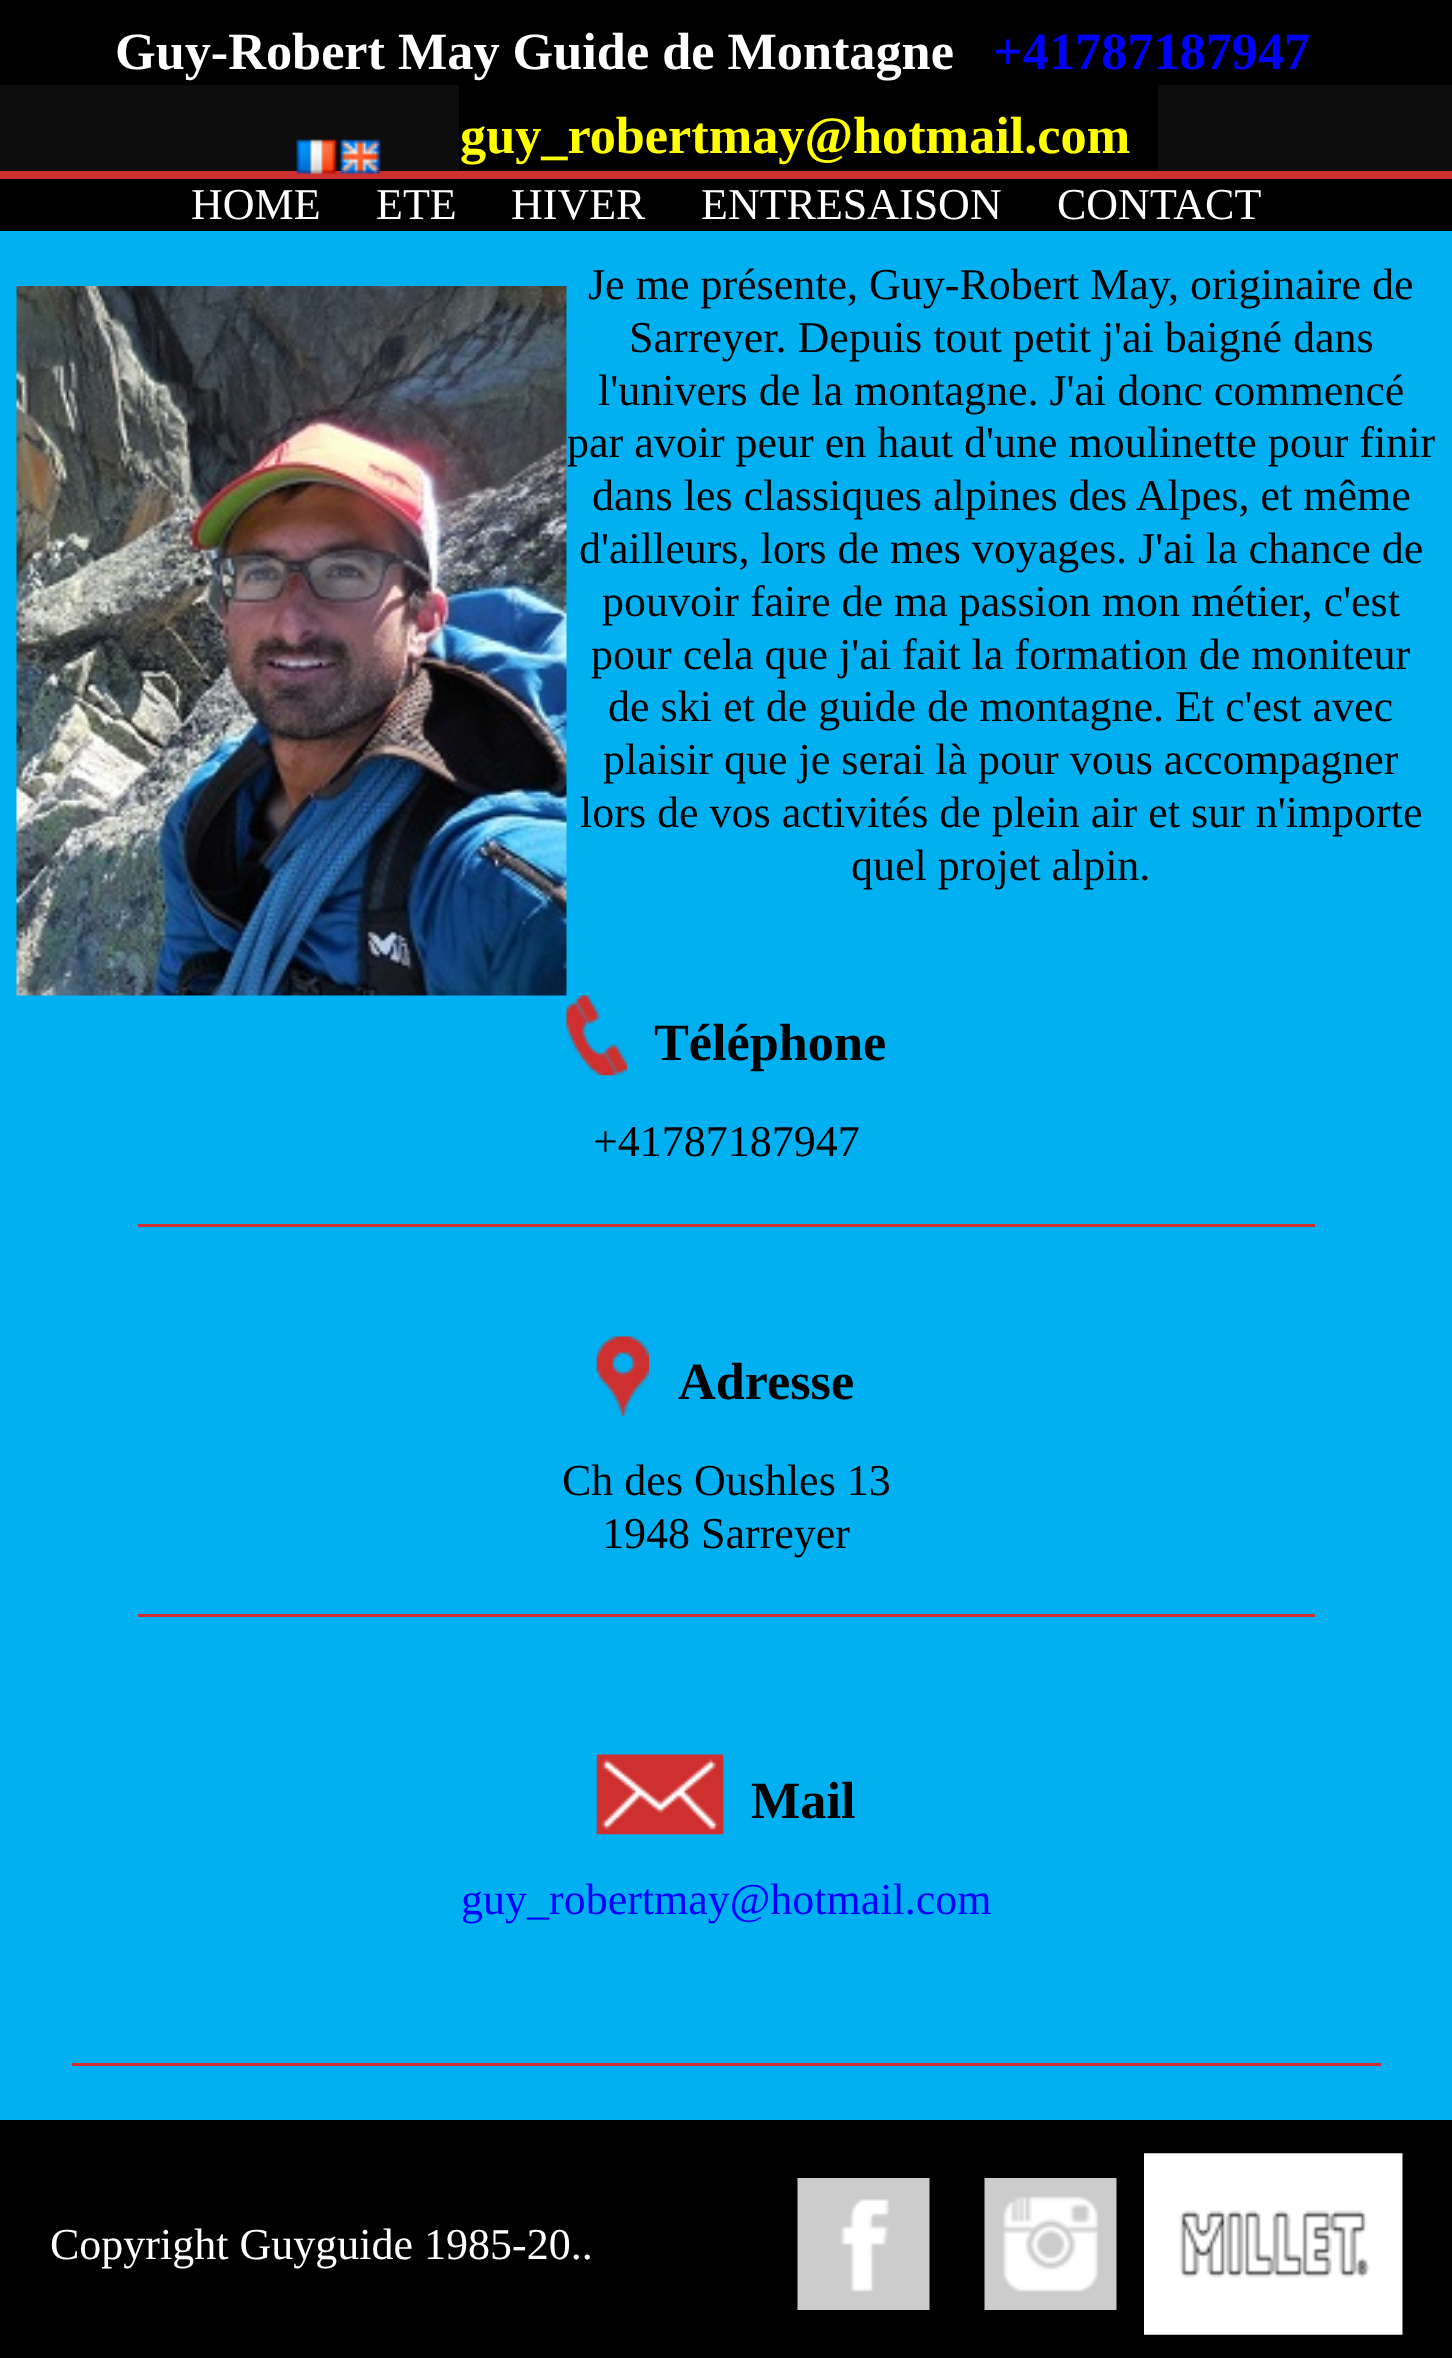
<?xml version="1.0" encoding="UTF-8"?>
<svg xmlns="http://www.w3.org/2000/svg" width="1452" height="2358">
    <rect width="100%" height="100%" fill="#000000"/>
    <rect x="0" y="231" width="1452" height="1889" fill="#00B0F0"/>
    <rect x="0" y="85" width="1452" height="86" fill="#0D0D0D"/>
    <rect x="0" y="171" width="1452" height="8" fill="#CE3030"/>
    <text x="115" y="69" font-family="Liberation Serif" font-size="52.25" font-weight="700" fill="#FFFFFF">Guy-Robert May Guide de Montagne</text>
    <text x="993" y="69" font-family="Liberation Serif" font-size="52.25" font-weight="700" fill="#0000FF">+41787187947</text>
    <image x="296" y="139" width="41" height="36" href="img_01.png"/>
    <image x="340" y="139" width="41" height="36" href="img_02.png"/>
    <rect x="459" y="85" width="699" height="86" fill="#000000"/>
    <text x="460" y="153" font-family="Liberation Serif" font-size="52.25" font-weight="700" fill="#FFFF00">guy_robertmay@hotmail.com</text>
    <text x="191" y="219" font-family="Liberation Serif" font-size="44" fill="#FFFFFF">HOME</text>
    <text x="376" y="219" font-family="Liberation Serif" font-size="44" fill="#FFFFFF">ETE</text>
    <text x="511" y="219" font-family="Liberation Serif" font-size="44" fill="#FFFFFF">HIVER</text>
    <text x="701" y="219" font-family="Liberation Serif" font-size="44" fill="#FFFFFF">ENTRESAISON</text>
    <text x="1057" y="219" font-family="Liberation Serif" font-size="44" fill="#FFFFFF">CONTACT</text>
    <image x="566" y="995" width="61" height="81" href="img_04.png"/>
    <image x="16" y="286" width="551" height="710" href="img_03.png"/>
    <text x="588" y="299" font-family="Liberation Serif" font-size="44" fill="#000000">Je me présente, Guy-Robert May, originaire de</text>
    <text x="629" y="352" font-family="Liberation Serif" font-size="44" fill="#000000">Sarreyer. Depuis tout petit j'ai baigné dans</text>
    <text x="598" y="405" font-family="Liberation Serif" font-size="44" fill="#000000">l'univers de la montagne. J'ai donc commencé</text>
    <text x="567" y="457" font-family="Liberation Serif" font-size="44" fill="#000000">par avoir peur en haut d'une moulinette pour finir</text>
    <text x="592" y="510" font-family="Liberation Serif" font-size="44" fill="#000000">dans les classiques alpines des Alpes, et même</text>
    <text x="579" y="563" font-family="Liberation Serif" font-size="44" fill="#000000">d'ailleurs, lors de mes voyages. J'ai la chance de</text>
    <text x="602" y="616" font-family="Liberation Serif" font-size="44" fill="#000000">pouvoir faire de ma passion mon métier, c'est</text>
    <text x="591" y="669" font-family="Liberation Serif" font-size="44" fill="#000000">pour cela que j'ai fait la formation de moniteur</text>
    <text x="608" y="721" font-family="Liberation Serif" font-size="44" fill="#000000">de ski et de guide de montagne. Et c'est avec</text>
    <text x="603" y="774" font-family="Liberation Serif" font-size="44" fill="#000000">plaisir que je serai là pour vous accompagner</text>
    <text x="580" y="827" font-family="Liberation Serif" font-size="44" fill="#000000">lors de vos activités de plein air et sur n'importe</text>
    <text x="851" y="880" font-family="Liberation Serif" font-size="44" fill="#000000">quel projet alpin.</text>
    <rect x="72" y="2063" width="1309" height="3" fill="#CE3030"/>
    <rect x="138" y="1224" width="1177" height="3" fill="#CE3030"/>
    <text x="654" y="1060" font-family="Liberation Serif" font-size="52.25" font-weight="700" fill="#000000">Téléphone</text>
    <text x="593" y="1156" font-family="Liberation Serif" font-size="44" fill="#000000">+41787187947</text>
    <rect x="138" y="1614" width="1177" height="3" fill="#CE3030"/>
    <image x="596" y="1336" width="53" height="81" href="img_05.png"/>
    <text x="678" y="1399" font-family="Liberation Serif" font-size="52.25" font-weight="700" fill="#000000">Adresse</text>
    <text x="562" y="1495" font-family="Liberation Serif" font-size="44" fill="#000000">Ch des Oushles 13</text>
    <text x="602" y="1548" font-family="Liberation Serif" font-size="44" fill="#000000">1948 Sarreyer</text>
    <image x="596" y="1754" width="128" height="81" href="img_06.png"/>
    <text x="751" y="1818" font-family="Liberation Serif" font-size="52.25" font-weight="700" fill="#000000">Mail</text>
    <text x="461" y="1914" font-family="Liberation Serif" font-size="44" fill="#0000FF">guy_robertmay@hotmail.com</text>
    <text x="50" y="2259" font-family="Liberation Serif" font-size="44" fill="#FFFFFF">Copyright Guyguide 1985-20..</text>
    <image x="797" y="2178" width="133" height="132" href="img_07.png"/>
    <image x="984" y="2178" width="133" height="132" href="img_08.png"/>
    <image x="1144" y="2153" width="259" height="182" href="img_09.png"/>
</svg>
